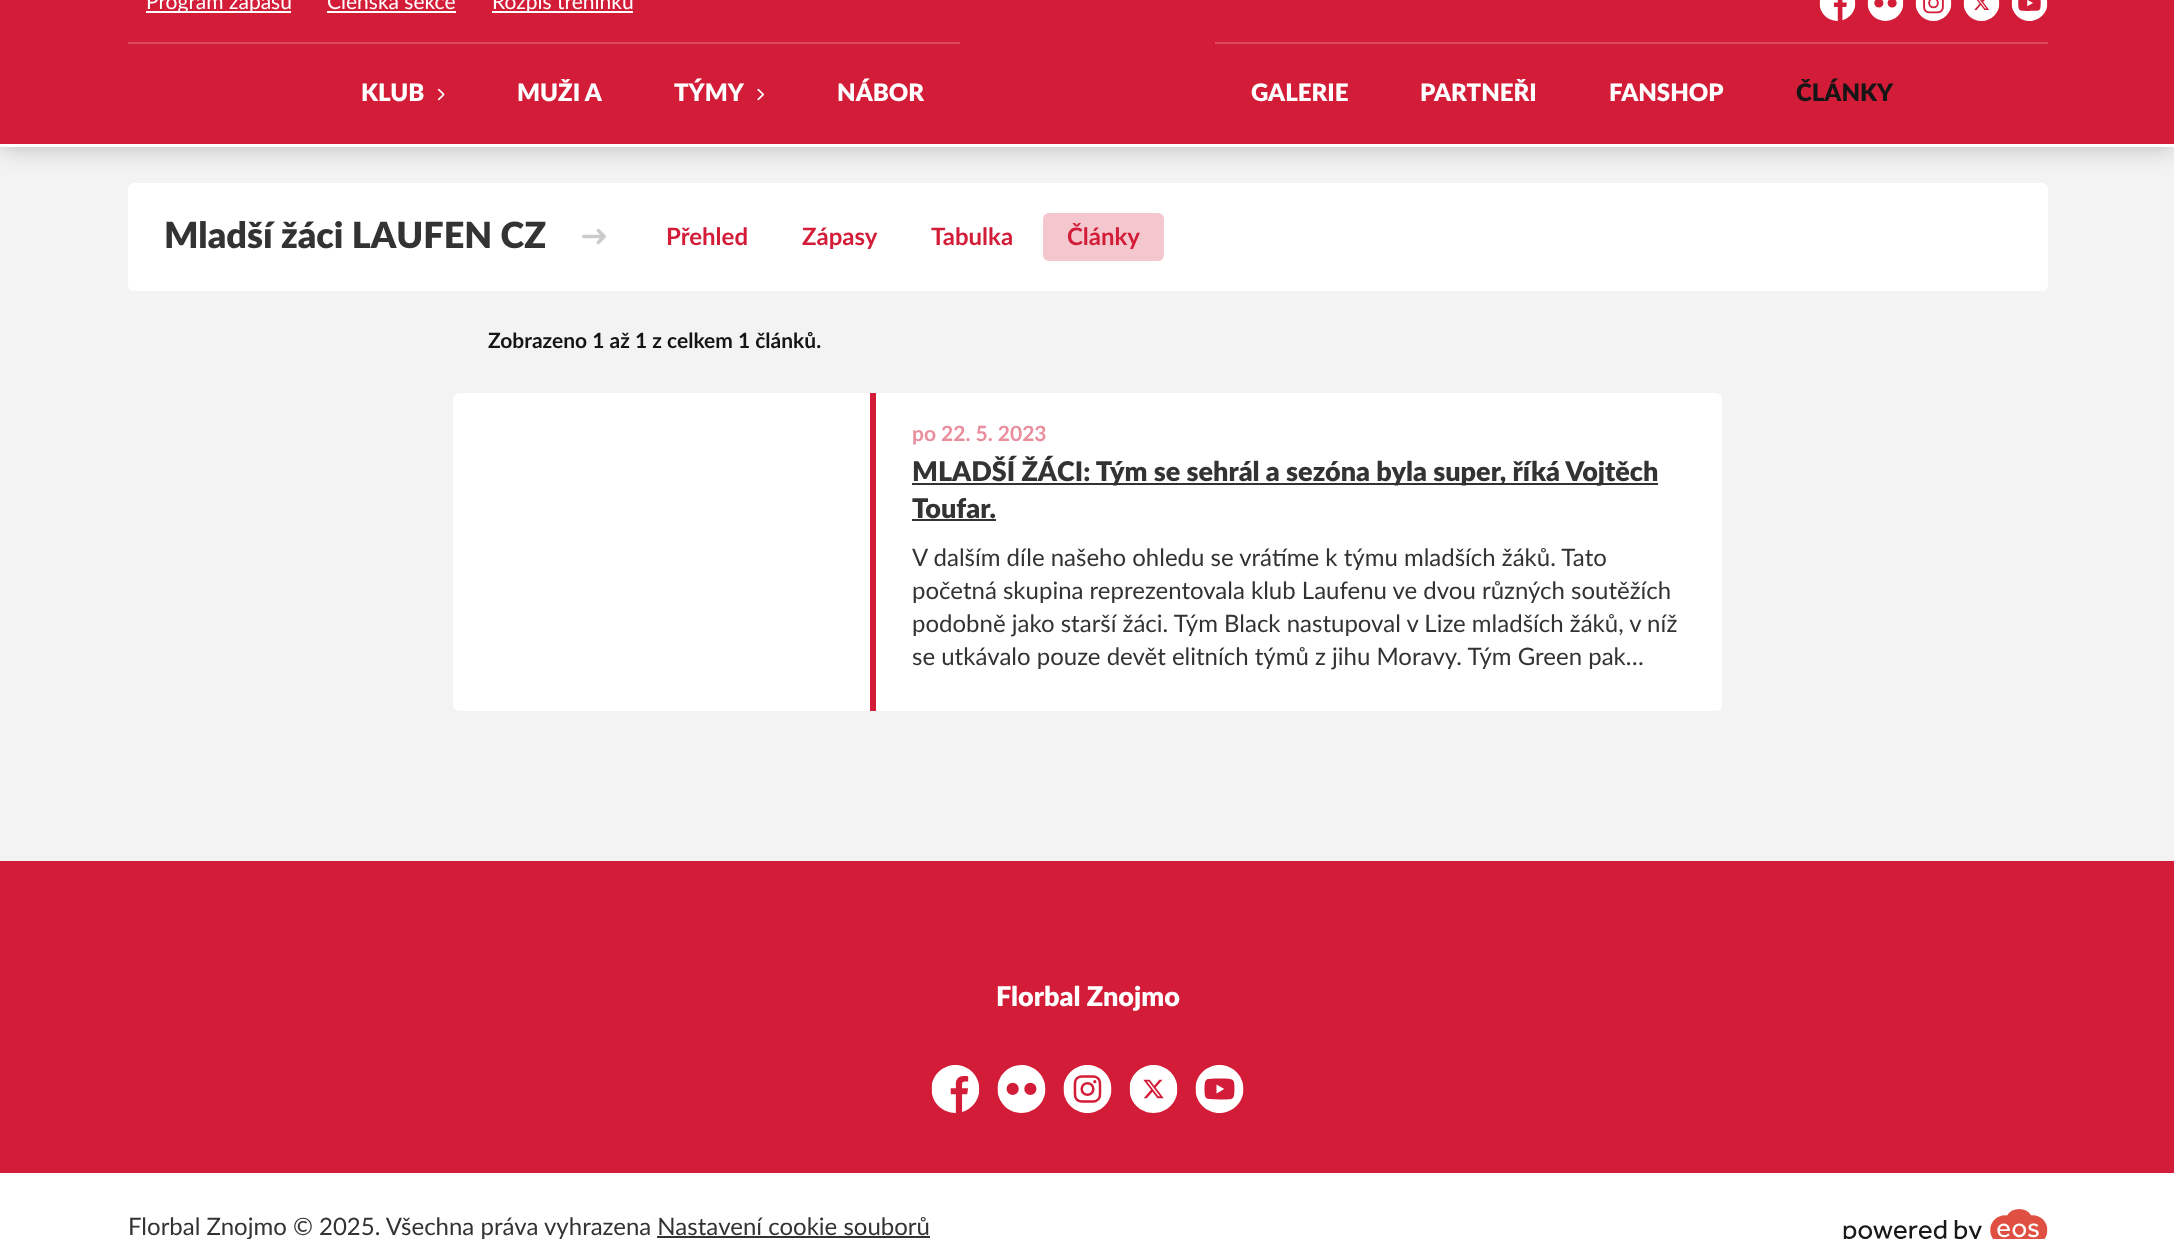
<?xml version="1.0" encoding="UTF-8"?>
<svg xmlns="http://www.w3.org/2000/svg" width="2174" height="1239">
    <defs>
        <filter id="blur1" x="-50%" y="-200%" width="200%" height="500%"><feGaussianBlur stdDeviation="12"/></filter>
    </defs>
    <rect width="100%" height="100%" fill="#F3F3F3"/>
    <rect x="128" y="183" width="1920" height="108" rx="6" fill="#FFFFFF"/>
    <rect x="0" y="-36" width="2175" height="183" fill="#000000" fill-opacity="0.25" filter="url(#blur1)"/>
    <rect x="0" y="144" width="2174" height="3" fill="#FFFFFF"/>
    <rect x="0" y="0" width="2174" height="144" fill="#D31D38"/>
    <rect x="146" y="11" width="145" height="2" fill="#FFFFFF"/>
    <text x="146" y="9" font-family="Lato" font-size="21" fill="#FFFFFF">Program zápasů</text>
    <text x="327" y="9" font-family="Lato" font-size="21" fill="#FFFFFF">Členská sekce</text>
    <rect x="327" y="11" width="129" height="2" fill="#FFFFFF"/>
    <rect x="492" y="11" width="141" height="2" fill="#FFFFFF"/>
    <text x="492" y="9" font-family="Lato" font-size="21" fill="#FFFFFF">Rozpis tréninků</text>
    <image x="1819" y="0" width="37" height="21" href="img_01.png"/>
    <image x="1867" y="0" width="37" height="21" href="img_02.png"/>
    <image x="1915" y="0" width="37" height="21" href="img_03.png"/>
    <image x="1963" y="0" width="37" height="21" href="img_04.png"/>
    <image x="2011" y="0" width="37" height="21" href="img_05.png"/>
    <rect x="128" y="42" width="832" height="2" fill="#DC4A60"/>
    <text x="361" y="101" font-family="Lato" font-size="24" font-weight="900" fill="#FFFFFF">KLUB</text>
    <image x="437" y="88" width="8" height="13" href="img_06.png"/>
    <text x="517" y="101" font-family="Lato" font-size="24" font-weight="900" fill="#FFFFFF">MUŽI A</text>
    <text x="674" y="101" font-family="Lato" font-size="24" font-weight="900" fill="#FFFFFF">TÝMY</text>
    <image x="757" y="88" width="7" height="13" href="img_07.png"/>
    <text x="837" y="101" font-family="Lato" font-size="24" font-weight="900" fill="#FFFFFF">NÁBOR</text>
    <rect x="1215" y="42" width="833" height="2" fill="#DC4A60"/>
    <text x="1251" y="101" font-family="Lato" font-size="24" font-weight="900" fill="#FFFFFF">GALERIE</text>
    <text x="1420" y="101" font-family="Lato" font-size="24" font-weight="900" fill="#FFFFFF">PARTNEŘI</text>
    <text x="1609" y="101" font-family="Lato" font-size="24" font-weight="900" fill="#FFFFFF">FANSHOP</text>
    <text x="1796" y="101" font-family="Lato" font-size="24" font-weight="900" fill="#151515">ČLÁNKY</text>
    <text x="164" y="248" font-family="Lato" font-size="36" font-weight="900" fill="#333333">Mladší žáci LAUFEN CZ</text>
    <image x="582" y="228" width="24" height="17" href="img_08.png"/>
    <text x="666" y="245" font-family="Lato" font-size="24" font-weight="700" fill="#D31D38">Přehled</text>
    <text x="802" y="245" font-family="Lato" font-size="24" font-weight="700" fill="#D31D38">Zápasy</text>
    <text x="931" y="245" font-family="Lato" font-size="24" font-weight="700" fill="#D31D38">Tabulka</text>
    <rect x="1043" y="213" width="121" height="48" rx="6" fill="#F4C6CD"/>
    <text x="1067" y="245" font-family="Lato" font-size="24" font-weight="700" fill="#D31D38">Články</text>
    <text x="488" y="348" font-family="Lato" font-size="21" font-weight="700" fill="#151515">Zobrazeno 1 až 1 z celkem 1 článků.</text>
    <rect x="453" y="393" width="1269" height="318" rx="6" fill="#FFFFFF"/>
    <rect x="870" y="393" width="6" height="318" fill="#D31D38"/>
    <text x="912" y="441" font-family="Lato" font-size="21" font-weight="700" fill="#E98E9C">po 22. 5. 2023</text>
    <rect x="912" y="483" width="746" height="2" fill="#333333"/>
    <text font-family="Lato" font-size="27" font-weight="900" fill="#333333">
        <tspan x="912" y="481">MLADŠÍ ŽÁCI: Tým se sehrál a sezóna byla super, říká Vojtěch</tspan>
        <tspan x="912" y="518">Toufar.</tspan>
    </text>
    <rect x="912" y="519" width="84" height="2" fill="#333333"/>
    <text font-family="Lato" font-size="24" fill="#333333">
        <tspan x="912" y="566">V dalším díle našeho ohledu se vrátíme k týmu mladších žáků. Tato</tspan>
        <tspan x="912" y="599">početná skupina reprezentovala klub Laufenu ve dvou různých soutěžích</tspan>
        <tspan x="912" y="632">podobně jako starší žáci. Tým Black nastupoval v Lize mladších žáků, v níž</tspan>
        <tspan x="912" y="665">se utkávalo pouze devět elitních týmů z jihu Moravy. Tým Green pak…</tspan>
    </text>
    <rect x="0" y="861" width="2174" height="312" fill="#D31D38"/>
    <text x="996" y="1006" font-family="Lato" font-size="27" font-weight="900" fill="#FFFFFF">Florbal Znojmo</text>
    <image x="931" y="1065" width="49" height="48" href="img_09.png"/>
    <image x="997" y="1065" width="49" height="48" href="img_10.png"/>
    <image x="1063" y="1065" width="49" height="48" href="img_11.png"/>
    <image x="1129" y="1065" width="49" height="48" href="img_12.png"/>
    <image x="1195" y="1065" width="49" height="48" href="img_13.png"/>
    <rect x="0" y="1173" width="2174" height="66" fill="#FFFFFF"/>
    <text x="128" y="1235" font-family="Lato" font-size="24" fill="#333333">Florbal Znojmo © 2025. Všechna práva vyhrazena Nastavení cookie souborů</text>
    <rect x="657" y="1236" width="273" height="2" fill="#333333"/>
    <image x="1843" y="1209" width="205" height="30" href="img_14.png"/>
</svg>
